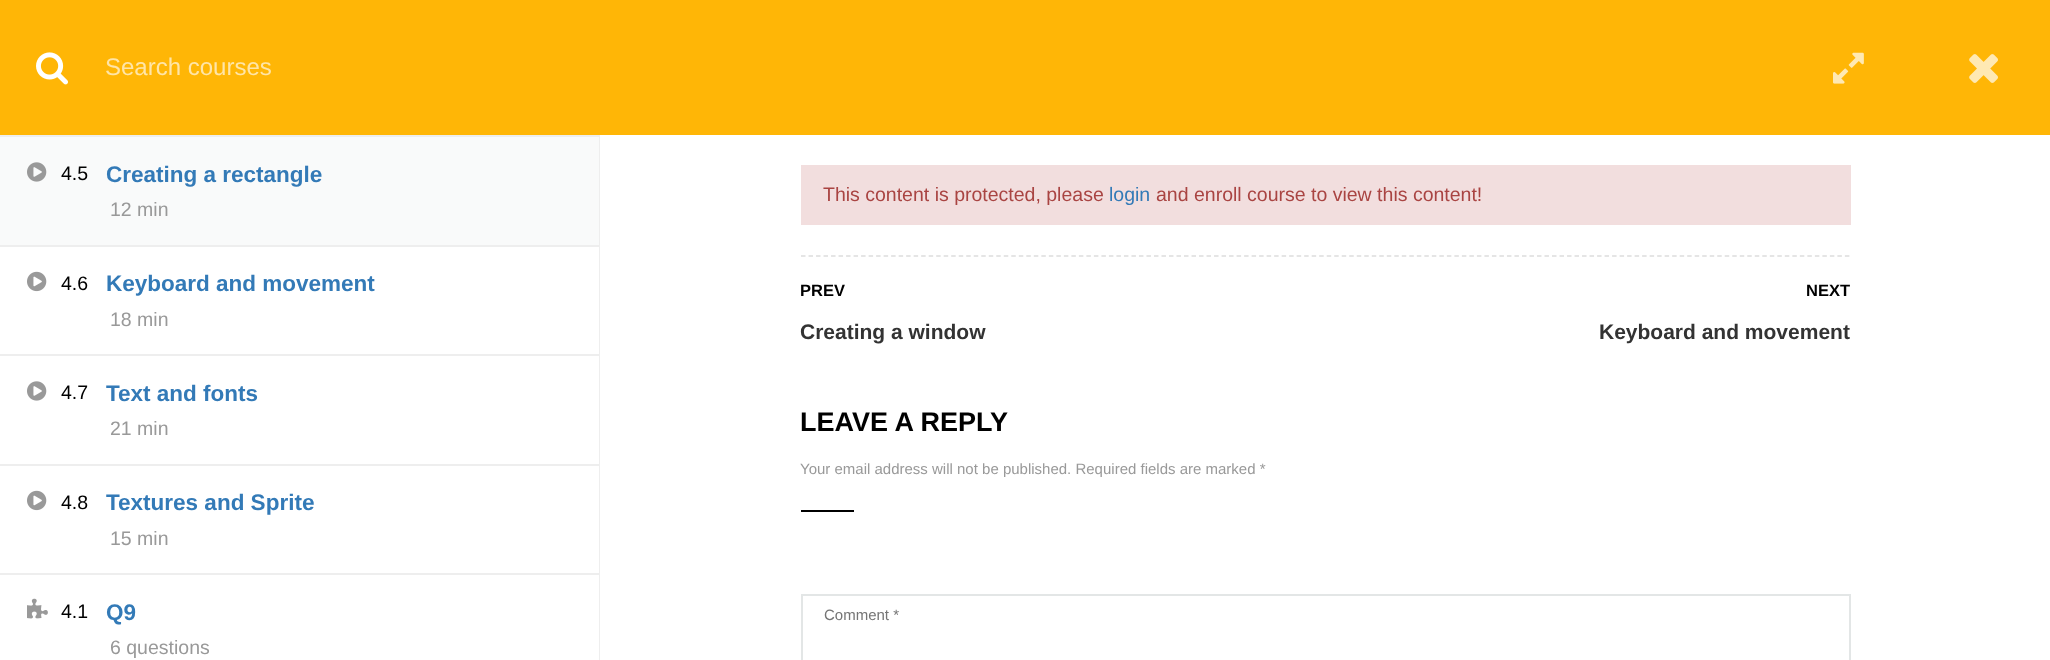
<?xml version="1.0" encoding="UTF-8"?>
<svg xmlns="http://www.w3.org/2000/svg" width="2050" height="660">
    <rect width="100%" height="100%" fill="#FFFFFF"/>
    <rect x="0" y="0" width="2050" height="135" fill="#FFB606"/>
    <image x="36" y="52" width="32" height="33" href="img_01.png"/>
    <text x="105" y="75" font-family="Liberation Sans" font-size="24" fill="#FFE5A8">Search courses</text>
    <image x="1833" y="52" width="31" height="32" href="img_02.png"/>
    <image x="1969" y="54" width="29" height="29" href="img_03.png"/>
    <rect x="801" y="165" width="1050" height="60" fill="#F2DEDE"/>
    <text x="823" y="201" font-family="Liberation Sans" font-size="19.5" fill="#A94442">This content is protected, please</text>
    <text x="1109" y="201" font-family="Liberation Sans" font-size="19.5" fill="#337AB7">login</text>
    <text x="1156" y="201" font-family="Liberation Sans" font-size="19.5" fill="#A94442">and enroll course to view this content!</text>
    <path d="M 801 256 H 1851" fill="none" stroke="#DDDDDD" stroke-width="1.5" stroke-dasharray="4.5 3.01"/>
    <text x="800" y="296" font-family="Liberation Sans" font-size="16.5" font-weight="700" fill="#000000">PREV</text>
    <text x="800" y="339" font-family="Liberation Sans" font-size="21" font-weight="700" fill="#333333">Creating a window</text>
    <text x="1806" y="296" font-family="Liberation Sans" font-size="16.5" font-weight="700" fill="#000000">NEXT</text>
    <text x="1599" y="339" font-family="Liberation Sans" font-size="21" font-weight="700" fill="#333333">Keyboard and movement</text>
    <text x="800" y="431" font-family="Liberation Sans" font-size="27" font-weight="700" fill="#000000">LEAVE A REPLY</text>
    <text x="800" y="474" font-family="Liberation Sans" font-size="15" fill="#999999">Your email address will not be published. Required fields are marked *</text>
    <rect x="801" y="510" width="53" height="2" fill="#000000"/>
    <rect x="802" y="595" width="1048" height="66" fill="none" stroke="#E3E6E6" stroke-width="2"/>
    <text x="824" y="620" font-family="Liberation Sans" font-size="15" fill="#757575">Comment *</text>
    <rect x="0" y="137" width="599" height="108" fill="#F9FAFA"/>
    <rect x="0" y="135" width="600" height="2" fill="#EEEEEE"/>
    <image x="27" y="162" width="20" height="20" href="img_04.png"/>
    <text x="61" y="180" font-family="Liberation Sans" font-size="19.5" fill="#000000">4.5</text>
    <text x="106" y="182" font-family="Liberation Sans" font-size="22.5" font-weight="700" fill="#337AB7">Creating a rectangle</text>
    <text x="110" y="216" font-family="Liberation Sans" font-size="19.5" fill="#999999">12 min</text>
    <rect x="0" y="245" width="600" height="2" fill="#EEEEEE"/>
    <image x="27" y="271" width="20" height="21" href="img_05.png"/>
    <text x="61" y="290" font-family="Liberation Sans" font-size="19.5" fill="#000000">4.6</text>
    <text x="106" y="291" font-family="Liberation Sans" font-size="22.5" font-weight="700" fill="#337AB7">Keyboard and movement</text>
    <text x="110" y="326" font-family="Liberation Sans" font-size="19.5" fill="#999999">18 min</text>
    <rect x="0" y="354" width="600" height="2" fill="#EEEEEE"/>
    <image x="27" y="381" width="20" height="20" href="img_06.png"/>
    <text x="61" y="399" font-family="Liberation Sans" font-size="19.5" fill="#000000">4.7</text>
    <text x="106" y="401" font-family="Liberation Sans" font-size="22.5" font-weight="700" fill="#337AB7">Text and fonts</text>
    <text x="110" y="435" font-family="Liberation Sans" font-size="19.5" fill="#999999">21 min</text>
    <rect x="0" y="464" width="600" height="2" fill="#EEEEEE"/>
    <image x="27" y="490" width="20" height="21" href="img_05.png"/>
    <text x="61" y="509" font-family="Liberation Sans" font-size="19.5" fill="#000000">4.8</text>
    <text x="106" y="510" font-family="Liberation Sans" font-size="22.5" font-weight="700" fill="#337AB7">Textures and Sprite</text>
    <text x="110" y="545" font-family="Liberation Sans" font-size="19.5" fill="#999999">15 min</text>
    <rect x="0" y="573" width="600" height="2" fill="#EEEEEE"/>
    <image x="27" y="598" width="21" height="21" href="img_07.png"/>
    <text x="61" y="618" font-family="Liberation Sans" font-size="19.5" fill="#000000">4.1</text>
    <text x="106" y="620" font-family="Liberation Sans" font-size="22.5" font-weight="700" fill="#337AB7">Q9</text>
    <text x="110" y="654" font-family="Liberation Sans" font-size="19.5" fill="#999999">6 questions</text>
    <rect x="599" y="135" width="1" height="525" fill="#EEEEEE"/>
</svg>
